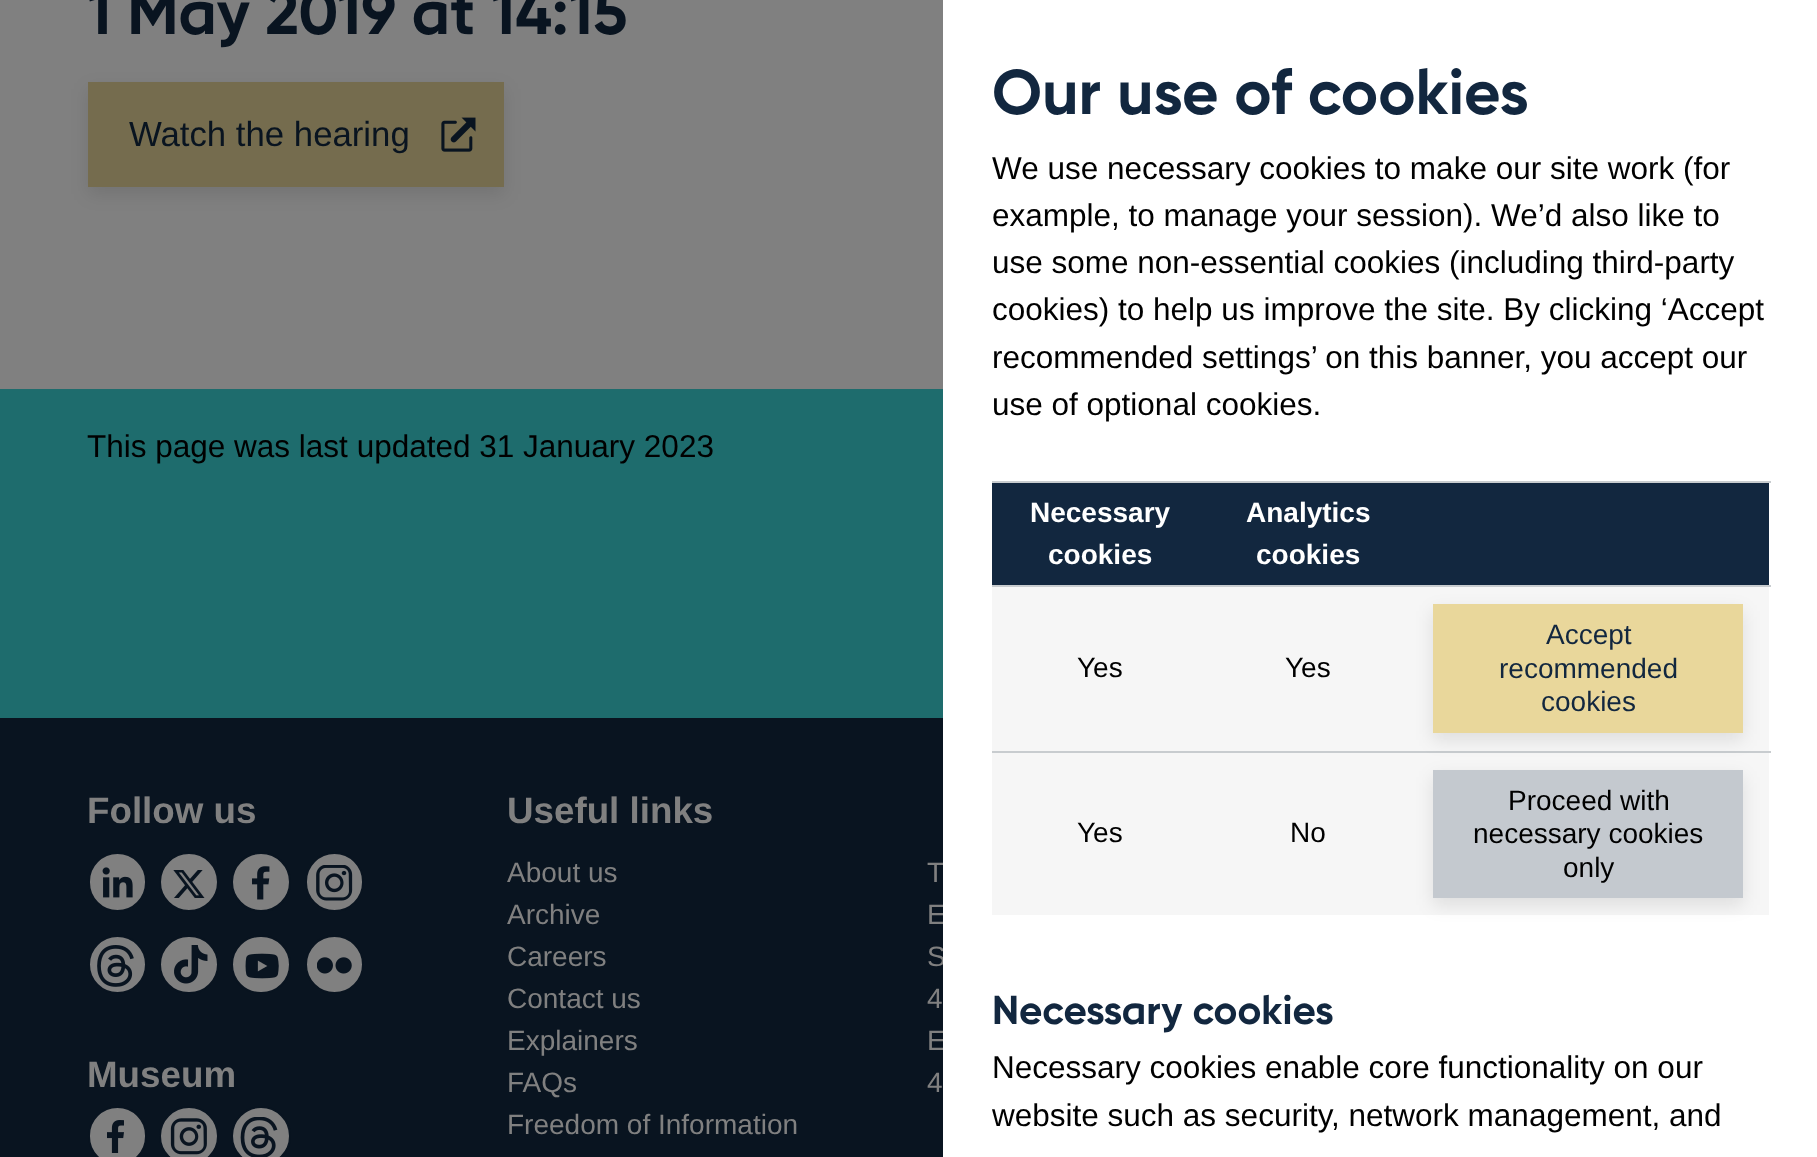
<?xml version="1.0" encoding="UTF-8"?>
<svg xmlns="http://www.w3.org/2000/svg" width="1817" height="1157">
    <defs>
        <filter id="blur1" x="-50%" y="-200%" width="200%" height="500%"><feGaussianBlur stdDeviation="9"/></filter>
    </defs>
    <rect width="100%" height="100%" fill="#808080"/>
    <text x="87" y="34" font-family="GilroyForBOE" font-size="63" font-weight="700" fill="#091420">1 May 2019 at 14:15</text>
    <rect x="88" y="89" width="416" height="105" fill="#000000" fill-opacity="0.1" filter="url(#blur1)"/>
    <rect x="88" y="82" width="416" height="105" fill="#756C4E"/>
    <text x="129" y="146" font-family="Liberation Sans" font-size="34.75" fill="#091420">Watch the hearing</text>
    <image x="441" y="117" width="35" height="35" href="img_01.png"/>
    <rect x="0" y="389" width="943" height="329" fill="#1E6C6D"/>
    <text x="87" y="457" font-family="Liberation Sans" font-size="31.5" fill="#000000">This page was last updated 31 January 2023</text>
    <rect x="0" y="718" width="943" height="439" fill="#091420"/>
    <text font-family="Liberation Sans" font-size="28" fill="#808080">
        <tspan x="927" y="882">T</tspan>
        <tspan x="927" y="924">E</tspan>
        <tspan x="927" y="966">S</tspan>
    </text>
    <text x="927" y="1050" font-family="Liberation Sans" font-size="28" fill="#808080">E</text>
    <rect x="943" y="0" width="874" height="1157" fill="#FFFFFF"/>
    <text x="992" y="114" font-family="GilroyForBOE" font-size="63" font-weight="700" fill="#12273F">Our use of cookies</text>
    <text font-family="Liberation Sans" font-size="31.5" fill="#000000">
        <tspan x="992" y="179">We use necessary cookies to make our site work (for</tspan>
        <tspan x="992" y="226">example, to manage your session). We’d also like to</tspan>
        <tspan x="992" y="273">use some non-essential cookies (including third-party</tspan>
        <tspan x="992" y="320">cookies) to help us improve the site. By clicking ‘Accept</tspan>
        <tspan x="992" y="368">recommended settings’ on this banner, you accept our</tspan>
        <tspan x="992" y="415">use of optional cookies.</tspan>
    </text>
    <rect x="992" y="587" width="777" height="328" fill="#F6F6F6"/>
    <rect x="992" y="481" width="779" height="2" fill="#C8CCCF"/>
    <rect x="992" y="483" width="777" height="102" fill="#12273F"/>
    <text x="1030" y="522" font-family="Liberation Sans" font-size="28" font-weight="700" fill="#FFFFFF">Necessary</text>
    <text x="1048" y="564" font-family="Liberation Sans" font-size="28" font-weight="700" fill="#FFFFFF">cookies</text>
    <text x="1246" y="522" font-family="Liberation Sans" font-size="28" font-weight="700" fill="#FFFFFF">Analytics</text>
    <text x="1256" y="564" font-family="Liberation Sans" font-size="28" font-weight="700" fill="#FFFFFF">cookies</text>
    <text x="1077" y="677" font-family="Liberation Sans" font-size="28" fill="#000000">Yes</text>
    <text x="1285" y="677" font-family="Liberation Sans" font-size="28" fill="#000000">Yes</text>
    <rect x="992" y="585" width="779" height="2" fill="#C8CCCF"/>
    <rect x="992" y="751" width="779" height="2" fill="#C8CCCF"/>
    <rect x="1433" y="611" width="310" height="129" fill="#000000" fill-opacity="0.1" filter="url(#blur1)"/>
    <rect x="1433" y="604" width="310" height="129" fill="#E9D79B"/>
    <text x="1546" y="644" font-family="Liberation Sans" font-size="28" fill="#12273F">Accept</text>
    <text x="1499" y="678" font-family="Liberation Sans" font-size="28" fill="#12273F">recommended</text>
    <text x="1541" y="711" font-family="Liberation Sans" font-size="28" fill="#12273F">cookies</text>
    <text x="1077" y="842" font-family="Liberation Sans" font-size="28" fill="#000000">Yes</text>
    <text x="1290" y="842" font-family="Liberation Sans" font-size="28" fill="#000000">No</text>
    <rect x="1433" y="777" width="310" height="128" fill="#000000" fill-opacity="0.1" filter="url(#blur1)"/>
    <rect x="1433" y="770" width="310" height="128" fill="#C4C9CF"/>
    <text x="1508" y="810" font-family="Liberation Sans" font-size="28" fill="#000000">Proceed with</text>
    <text x="1473" y="843" font-family="Liberation Sans" font-size="28" fill="#000000">necessary cookies</text>
    <text x="1563" y="877" font-family="Liberation Sans" font-size="28" fill="#000000">only</text>
    <text x="992" y="1024" font-family="GilroyForBOE" font-size="40.25" font-weight="700" fill="#12273F">Necessary cookies</text>
    <text font-family="Liberation Sans" font-size="31.5" fill="#000000">
        <tspan x="992" y="1078">Necessary cookies enable core functionality on our</tspan>
        <tspan x="992" y="1126">website such as security, network management, and</tspan>
    </text>
    <text x="87" y="823" font-family="Liberation Sans" font-size="36.75" font-weight="700" fill="#808080">Follow us</text>
    <rect x="89" y="853" width="57" height="58" rx="28.5" fill="#808080" stroke="#091420" stroke-width="2"/>
    <image x="102" y="867" width="31" height="31" href="img_02.png"/>
    <circle cx="189" cy="882" r="29" fill="#808080" stroke="#091420" stroke-width="2"/>
    <image x="173" y="870" width="32" height="28" href="img_03.png"/>
    <circle cx="261" cy="882" r="29" fill="#808080" stroke="#091420" stroke-width="2"/>
    <image x="252" y="866" width="18" height="34" href="img_04.png"/>
    <rect x="306" y="853" width="57" height="58" rx="28.5" fill="#808080" stroke="#091420" stroke-width="2"/>
    <image x="316" y="865" width="37" height="36" href="img_05.png"/>
    <circle cx="117.5" cy="964.5" r="28.5" fill="#808080" stroke="#091420" stroke-width="2"/>
    <image x="97" y="945" width="37" height="42" href="img_06.png"/>
    <rect x="160" y="936" width="58" height="57" rx="28.5" fill="#808080" stroke="#091420" stroke-width="2"/>
    <image x="174" y="945" width="34" height="39" href="img_07.png"/>
    <rect x="232" y="936" width="58" height="57" rx="28.5" fill="#808080" stroke="#091420" stroke-width="2"/>
    <image x="245" y="953" width="34" height="26" href="img_08.png"/>
    <circle cx="334.5" cy="964.5" r="28.5" fill="#808080" stroke="#091420" stroke-width="2"/>
    <image x="317" y="957" width="35" height="17" href="img_09.png"/>
    <text x="87" y="1087" font-family="Liberation Sans" font-size="36.75" font-weight="700" fill="#808080">Museum</text>
    <rect x="89" y="1107" width="57" height="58" rx="28.5" fill="#808080" stroke="#091420" stroke-width="2"/>
    <image x="107" y="1120" width="17" height="33" href="img_10.png"/>
    <circle cx="189" cy="1136" r="29" fill="#808080" stroke="#091420" stroke-width="2"/>
    <image x="170" y="1118" width="37" height="37" href="img_11.png"/>
    <circle cx="261" cy="1136" r="29" fill="#808080" stroke="#091420" stroke-width="2"/>
    <image x="240" y="1117" width="38" height="40" href="img_12.png"/>
    <text x="507" y="823" font-family="Liberation Sans" font-size="36.75" font-weight="700" fill="#808080">Useful links</text>
    <text font-family="Liberation Sans" font-size="28" fill="#808080">
        <tspan x="507" y="882">About us</tspan>
        <tspan x="507" y="924">Archive</tspan>
        <tspan x="507" y="966">Careers</tspan>
        <tspan x="507" y="1008">Contact us</tspan>
        <tspan x="507" y="1050">Explainers</tspan>
        <tspan x="507" y="1092">FAQs</tspan>
        <tspan x="507" y="1134">Freedom of Information</tspan>
    </text>
    <text x="927" y="1008" font-family="Liberation Sans" font-size="28" fill="#808080">4</text>
    <text x="927" y="1092" font-family="Liberation Sans" font-size="28" fill="#808080">4</text>
</svg>
